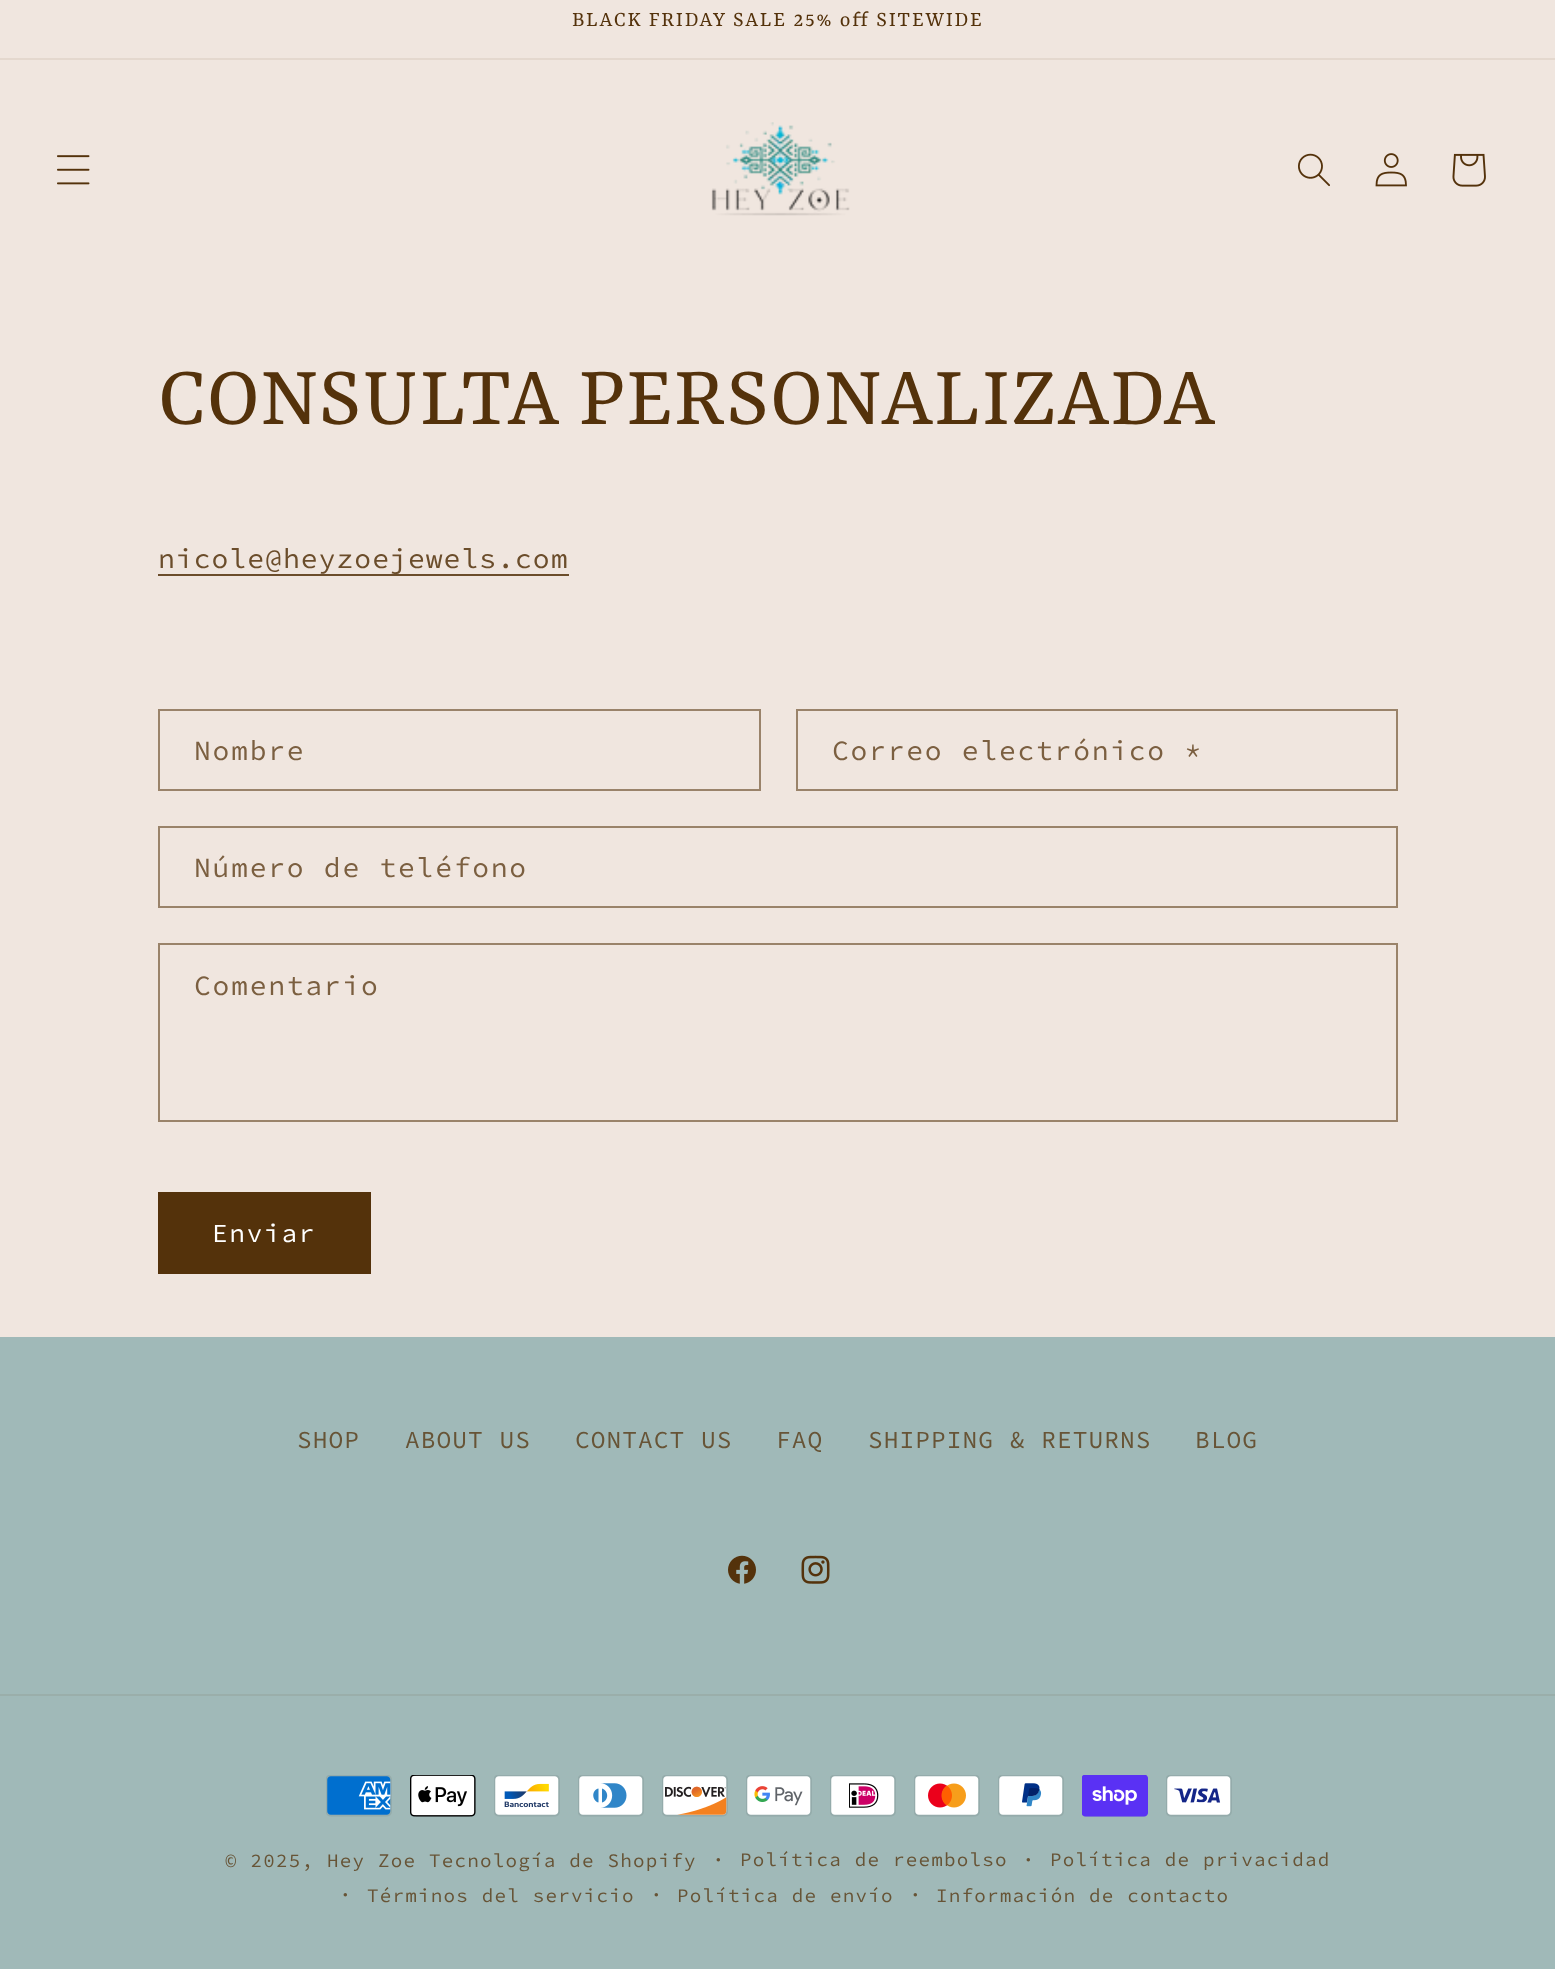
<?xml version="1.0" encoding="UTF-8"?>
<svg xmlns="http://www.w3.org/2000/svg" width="1555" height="1969">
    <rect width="100%" height="100%" fill="#F0E6DF"/>
    <rect x="0" y="58" width="1555" height="2" fill="#E4D8CE"/>
    <text x="572" y="26" font-family="Rasa" font-size="22.75" letter-spacing="1.75" fill="#54320B">BLACK FRIDAY SALE 25% off SITEWIDE</text>
    <image x="57" y="155" width="33" height="30" href="img_01.png"/>
    <image x="711" y="122" width="139" height="94" href="img_02.png"/>
    <image x="1298" y="153" width="32" height="34" href="img_03.png"/>
    <image x="1375" y="153" width="32" height="34" href="img_04.png"/>
    <image x="1452" y="153" width="34" height="34" href="img_05.png"/>
    <text x="158" y="424" font-family="Rasa" font-size="91" letter-spacing="1.05" fill="#54320B">CONSULTA PERSONALIZADA</text>
    <rect x="158" y="574" width="411" height="2" fill="#6B4D2B"/>
    <text x="158" y="568" font-family="Source Code Pro" font-size="28" letter-spacing="1.05" fill="#6B4D2B">nicole@heyzoejewels.com</text>
    <rect x="159" y="710" width="601" height="80" fill="none" stroke="#9A836A" stroke-width="2"/>
    <text x="194" y="760" font-family="Source Code Pro" font-size="28" letter-spacing="1.75" fill="#7B5F40">Nombre</text>
    <rect x="797" y="710" width="600" height="80" fill="none" stroke="#9A836A" stroke-width="2"/>
    <text x="832" y="760" font-family="Source Code Pro" font-size="28" letter-spacing="1.75" fill="#7B5F40">Correo electrónico *</text>
    <rect x="159" y="827" width="1238" height="80" fill="none" stroke="#9A836A" stroke-width="2"/>
    <text x="194" y="877" font-family="Source Code Pro" font-size="28" letter-spacing="1.75" fill="#7B5F40">Número de teléfono</text>
    <rect x="159" y="944" width="1238" height="177" fill="none" stroke="#9A836A" stroke-width="2"/>
    <text x="194" y="995" font-family="Source Code Pro" font-size="28" letter-spacing="1.75" fill="#7B5F40">Comentario</text>
    <rect x="158" y="1192" width="213" height="82" fill="#54320B"/>
    <text x="212" y="1242" font-family="Source Code Pro" font-size="26" letter-spacing="1.75" fill="#FFFFFF">Enviar</text>
    <rect x="0" y="1337" width="1555" height="632" fill="#A0B9B8"/>
    <text x="297" y="1448" font-family="Source Code Pro" font-size="24.5" letter-spacing="1.05" fill="#675436">SHOP</text>
    <text x="405" y="1448" font-family="Source Code Pro" font-size="24.5" letter-spacing="1.05" fill="#675436">ABOUT US</text>
    <text x="575" y="1448" font-family="Source Code Pro" font-size="24.5" letter-spacing="1.05" fill="#675436">CONTACT US</text>
    <text x="776" y="1448" font-family="Source Code Pro" font-size="24.5" letter-spacing="1.05" fill="#675436">FAQ</text>
    <text x="868" y="1448" font-family="Source Code Pro" font-size="24.5" letter-spacing="1.05" fill="#675436">SHIPPING &amp; RETURNS</text>
    <text x="1195" y="1448" font-family="Source Code Pro" font-size="24.5" letter-spacing="1.05" fill="#675436">BLOG</text>
    <image x="728" y="1555" width="28" height="29" href="img_06.png"/>
    <image x="801" y="1555" width="29" height="29" href="img_07.png"/>
    <rect x="0" y="1694" width="1555" height="2" fill="#9AAEAA"/>
    <image x="326" y="1775" width="66" height="42" href="img_08.png"/>
    <image x="410" y="1775" width="66" height="42" href="img_09.png"/>
    <image x="494" y="1775" width="66" height="42" href="img_10.png"/>
    <image x="578" y="1775" width="66" height="42" href="img_11.png"/>
    <image x="662" y="1775" width="66" height="42" href="img_12.png"/>
    <image x="746" y="1775" width="66" height="42" href="img_13.png"/>
    <image x="830" y="1775" width="66" height="42" href="img_14.png"/>
    <image x="914" y="1775" width="66" height="42" href="img_15.png"/>
    <image x="998" y="1775" width="66" height="42" href="img_16.png"/>
    <image x="1082" y="1775" width="66" height="42" href="img_17.png"/>
    <image x="1166" y="1775" width="66" height="42" href="img_18.png"/>
    <text x="712" y="1867" font-family="Source Code Pro" font-size="21" letter-spacing="1.2" fill="#675436">·</text>
    <text x="740" y="1866" font-family="Source Code Pro" font-size="19.25" letter-spacing="1.2" fill="#675436">Política de reembolso</text>
    <text x="1022" y="1867" font-family="Source Code Pro" font-size="21" letter-spacing="1.2" fill="#675436">·</text>
    <text x="1050" y="1866" font-family="Source Code Pro" font-size="19.25" letter-spacing="1.2" fill="#675436">Política de privacidad</text>
    <text x="339" y="1902" font-family="Source Code Pro" font-size="21" letter-spacing="1.2" fill="#675436">·</text>
    <text x="367" y="1902" font-family="Source Code Pro" font-size="19.25" letter-spacing="1.2" fill="#675436">Términos del servicio</text>
    <text x="650" y="1902" font-family="Source Code Pro" font-size="21" letter-spacing="1.2" fill="#675436">·</text>
    <text x="677" y="1902" font-family="Source Code Pro" font-size="19.25" letter-spacing="1.2" fill="#675436">Política de envío</text>
    <text x="909" y="1902" font-family="Source Code Pro" font-size="21" letter-spacing="1.2" fill="#675436">·</text>
    <text x="936" y="1902" font-family="Source Code Pro" font-size="19.25" letter-spacing="1.2" fill="#675436">Información de contacto</text>
    <text x="225" y="1867" font-family="Source Code Pro" font-size="19.25" letter-spacing="1.2" fill="#675436">© 2025, Hey Zoe Tecnología de Shopify</text>
</svg>
